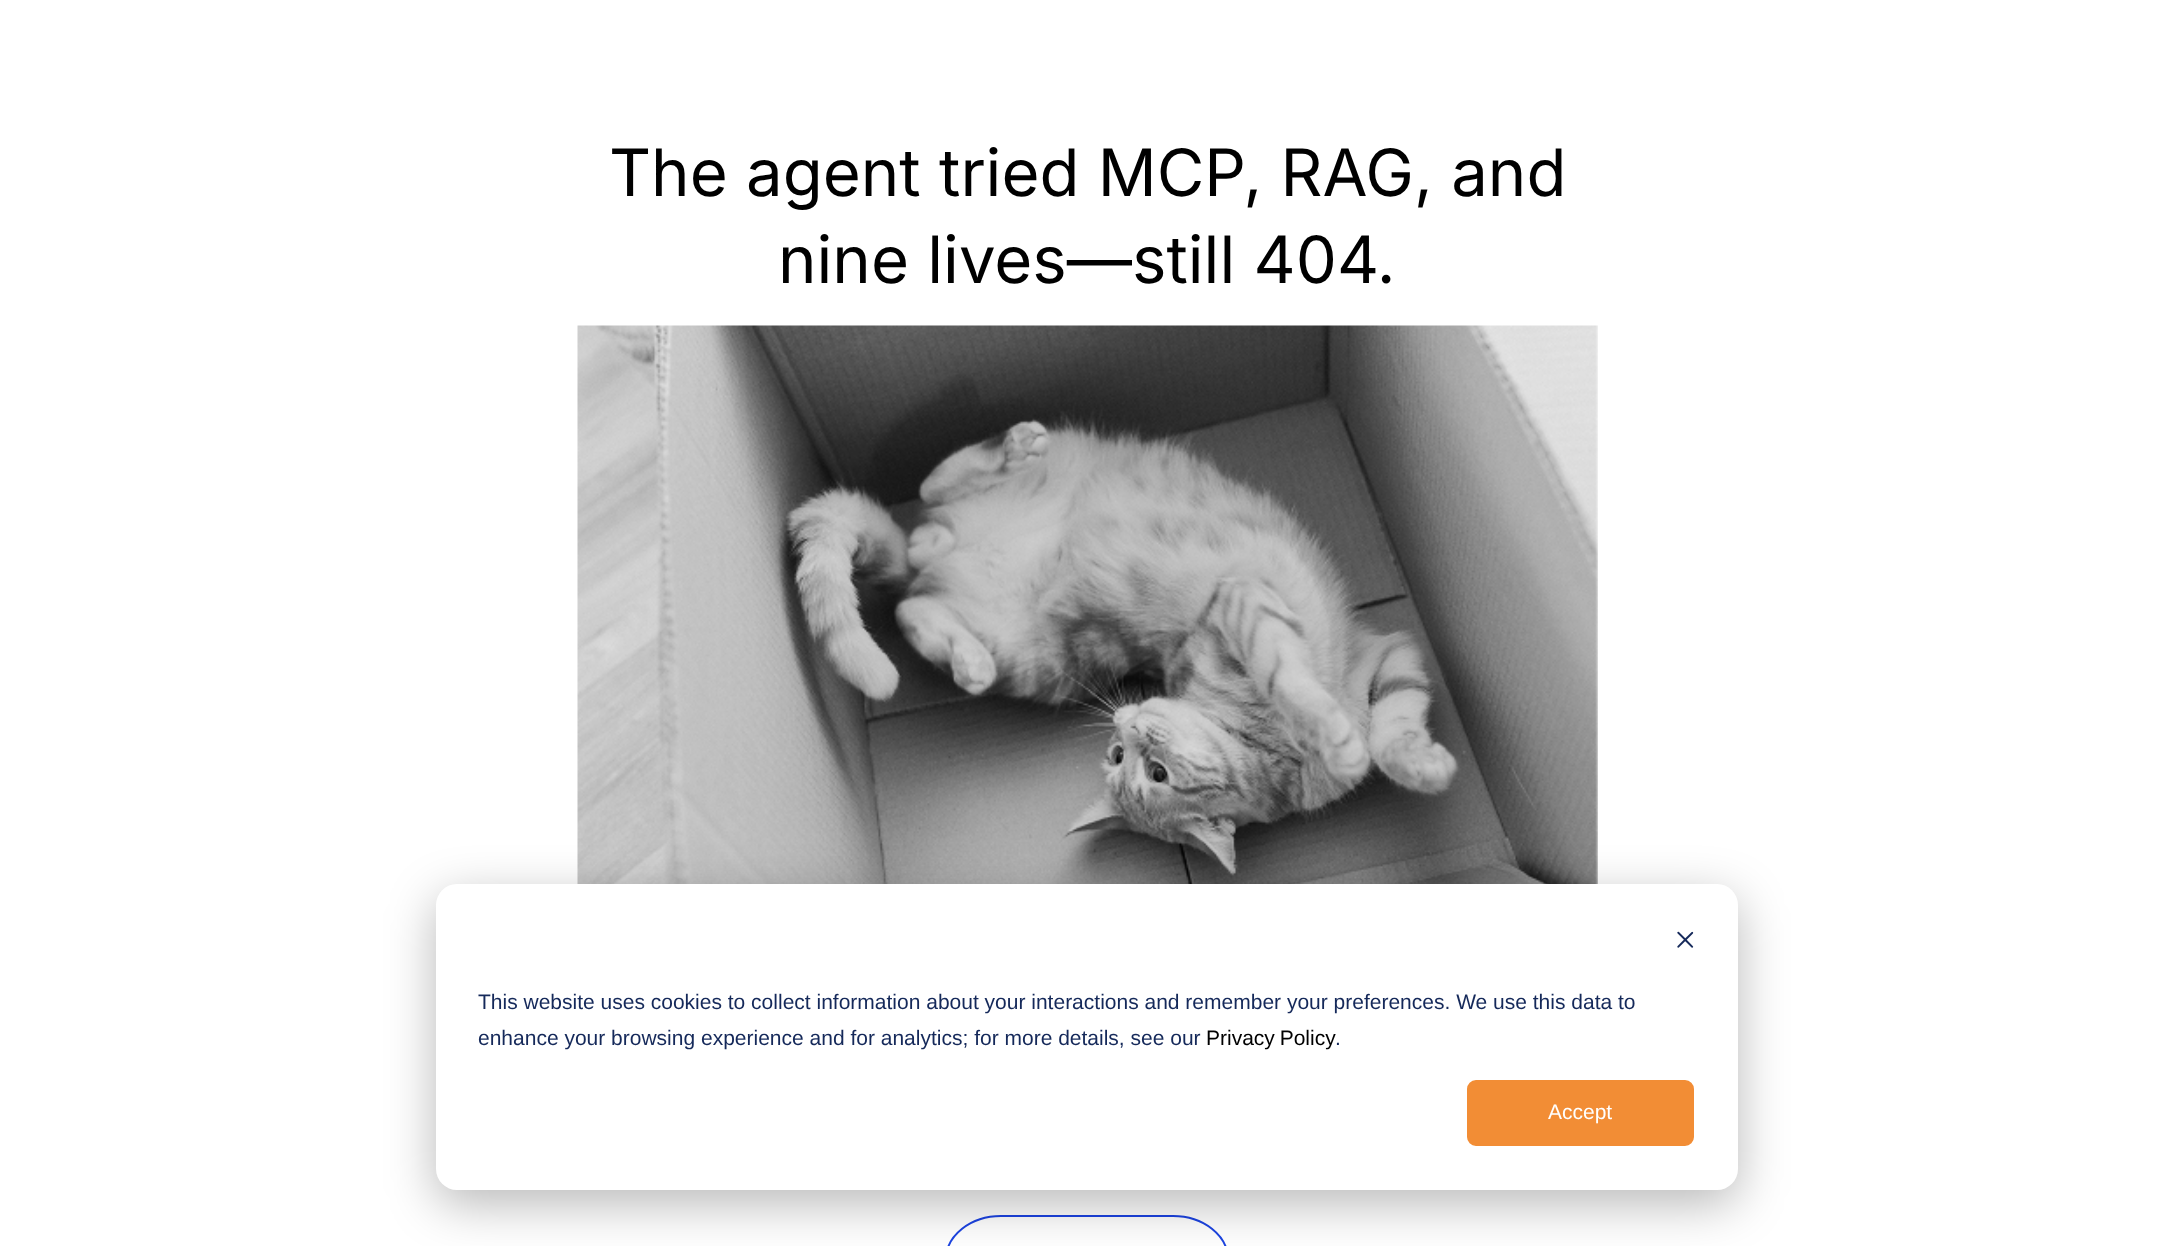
<?xml version="1.0" encoding="UTF-8"?>
<svg xmlns="http://www.w3.org/2000/svg" width="2172" height="1246">
    <defs>
        <filter id="blur1" x="-50%" y="-200%" width="200%" height="500%"><feGaussianBlur stdDeviation="24.5"/></filter>
    </defs>
    <rect width="100%" height="100%" fill="#FFFFFF"/>
    <text x="609" y="196" font-family="Inter" font-size="65.25" fill="#000000">The agent tried MCP, RAG, and</text>
    <text x="778" y="283" font-family="Inter" font-size="65.25" fill="#000000">nine lives—still 404.</text>
    <image x="577" y="325" width="1021" height="559" href="img_01.png"/>
    <rect x="946" y="1216" width="282" height="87" rx="55" fill="none" stroke="#1B43E1" stroke-width="2"/>
    <rect x="436" y="898" width="1302" height="306" rx="21" fill="#000000" fill-opacity="0.28" filter="url(#blur1)"/>
    <rect x="436" y="884" width="1302" height="306" rx="21" fill="#FFFFFF"/>
    <image x="1677" y="931" width="17" height="17" href="img_02.png"/>
    <text font-family="Liberation Sans" font-size="21" fill="#15295A">
        <tspan x="478" y="1009">This website uses cookies to collect information about your interactions and remember your preferences. We use this data to</tspan>
        <tspan x="478" y="1045">enhance your browsing experience and for analytics; for more details, see our</tspan>
    </text>
    <text x="1206" y="1045" word-spacing="-1" font-family="Liberation Sans" font-size="21" fill="#000000">Privacy Policy</text>
    <text x="1335" y="1045" font-family="Liberation Sans" font-size="21" fill="#15295A">.</text>
    <rect x="1466" y="1079" width="229" height="68" rx="10" fill="#F28D35" stroke="#FFFFFF" stroke-width="2"/>
    <text x="1548" y="1119" font-family="Liberation Sans" font-size="21" fill="#FFFFFF">Accept</text>
</svg>
